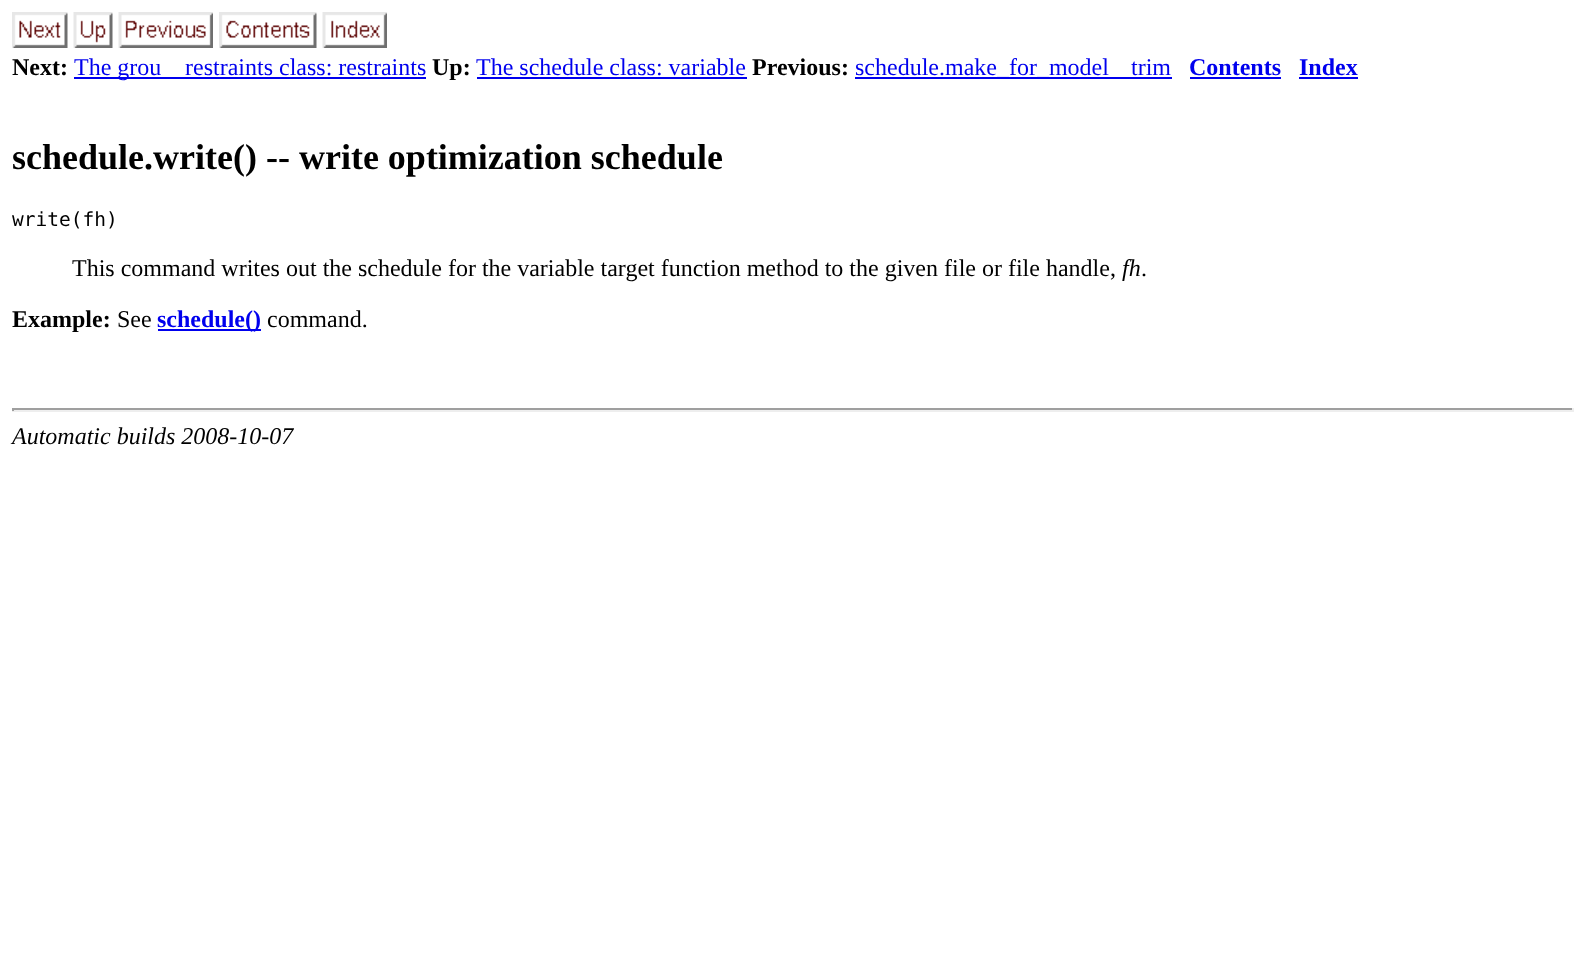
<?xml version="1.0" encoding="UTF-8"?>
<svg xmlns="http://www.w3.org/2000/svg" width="1585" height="962">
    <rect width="100%" height="100%" fill="#FFFFFF"/>
    <image x="12" y="12" width="56" height="36" href="img_01.png"/>
    <image x="73" y="12" width="40" height="36" href="img_02.png"/>
    <image x="118" y="12" width="95" height="36" href="img_03.png"/>
    <image x="219" y="12" width="98" height="36" href="img_04.png"/>
    <image x="322" y="12" width="65" height="36" href="img_05.png"/>
    <text x="12" y="75" font-family="Liberation Serif" font-size="24" font-weight="700" fill="#000000">Next:</text>
    <rect x="74" y="77" width="352" height="2" fill="#0000EE"/>
    <text x="74" y="75" font-family="Liberation Serif" font-size="24" fill="#0000EE">The grou</text>
    <text x="185" y="75" font-family="Liberation Serif" font-size="24" fill="#0000EE">restraints class: restraints</text>
    <text x="432" y="75" font-family="Liberation Serif" font-size="24" font-weight="700" fill="#000000">Up:</text>
    <text x="476" y="75" font-family="Liberation Serif" font-size="24" fill="#0000EE">The schedule class: variable</text>
    <rect x="477" y="77" width="270" height="2" fill="#0000EE"/>
    <text x="752" y="75" font-family="Liberation Serif" font-size="24" font-weight="700" fill="#000000">Previous:</text>
    <rect x="855" y="77" width="317" height="2" fill="#0000EE"/>
    <text x="855" y="75" font-family="Liberation Serif" font-size="24" fill="#0000EE">schedule.make_for_model</text>
    <text x="1131" y="75" font-family="Liberation Serif" font-size="24" fill="#0000EE">trim</text>
    <text x="1189" y="75" font-family="Liberation Serif" font-size="24" font-weight="700" fill="#0000EE">Contents</text>
    <rect x="1190" y="77" width="91" height="2" fill="#0000EE"/>
    <text x="1299" y="75" font-family="Liberation Serif" font-size="24" font-weight="700" fill="#0000EE">Index</text>
    <rect x="1299" y="77" width="59" height="2" fill="#0000EE"/>
    <text x="12" y="169" font-family="Liberation Serif" font-size="36" font-weight="700" fill="#000000">schedule.write() -- write optimization schedule</text>
    <text x="12" y="226" font-family="DejaVu Sans Mono" font-size="19.5" fill="#000000">write(fh)</text>
    <text x="72" y="276" font-family="Liberation Serif" font-size="24" fill="#000000">This command writes out the schedule for the variable target function method to the given file or file handle,</text>
    <text x="1122" y="276" font-family="Liberation Serif" font-size="24" font-style="italic" fill="#000000">fh</text>
    <text x="1141" y="276" font-family="Liberation Serif" font-size="24" fill="#000000">.</text>
    <text x="12" y="327" font-family="Liberation Serif" font-size="24" font-weight="700" fill="#000000">Example:</text>
    <text x="117" y="327" font-family="Liberation Serif" font-size="24" fill="#000000">See</text>
    <rect x="158" y="329" width="103" height="2" fill="#0000EE"/>
    <text x="157" y="327" font-family="Liberation Serif" font-size="24" font-weight="700" fill="#0000EE">schedule()</text>
    <text x="267" y="327" font-family="Liberation Serif" font-size="24" fill="#000000">command.</text>
    <rect x="12" y="408" width="1562" height="2" fill="#9F9F9F"/>
    <rect x="1572" y="408" width="2" height="3" fill="#EEEEEE"/>
    <rect x="12" y="410" width="1562" height="2" fill="#EEEEEE"/>
    <rect x="12" y="408" width="2" height="3" fill="#9F9F9F"/>
    <text x="12" y="444" font-family="Liberation Serif" font-size="24" font-style="italic" fill="#000000">Automatic builds 2008-10-07</text>
</svg>
